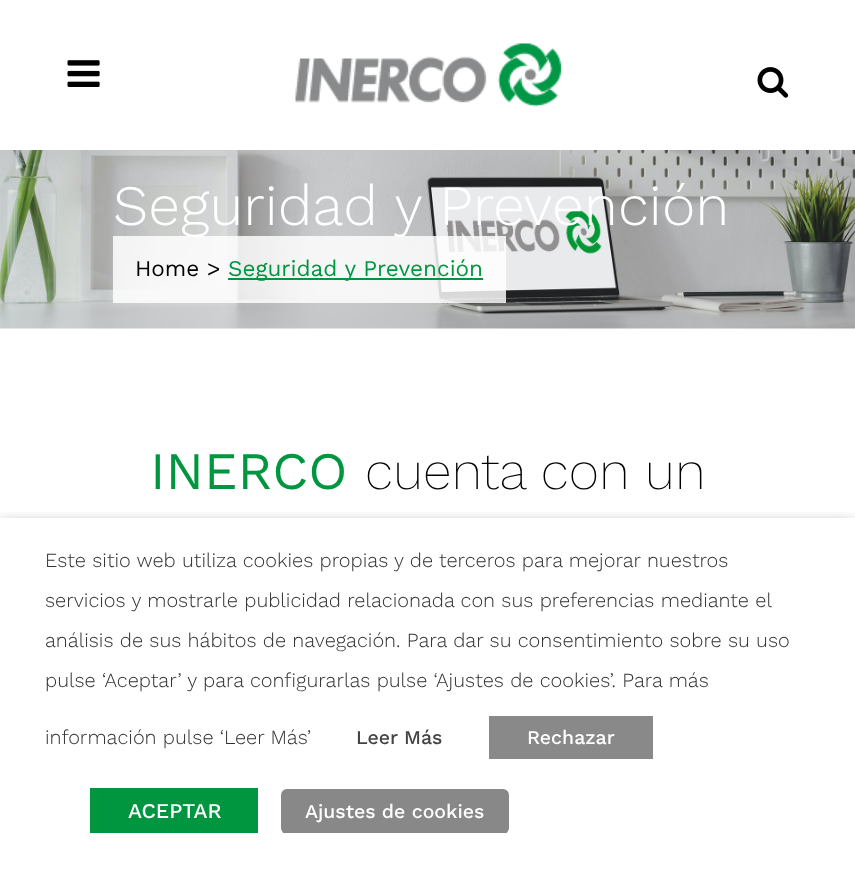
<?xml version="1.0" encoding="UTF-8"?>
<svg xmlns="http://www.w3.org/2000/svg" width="855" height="871">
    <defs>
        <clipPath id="clip1"><rect x="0" y="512" width="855" height="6"/></clipPath>
        <filter id="blur1" x="-50%" y="-200%" width="200%" height="500%"><feGaussianBlur stdDeviation="7.5"/></filter>
    </defs>
    <rect width="100%" height="100%" fill="#FFFFFF"/>
    <image x="67" y="60" width="33" height="27" href="img_01.png"/>
    <image x="295" y="43" width="267" height="64" href="img_02.png"/>
    <image x="757" y="67" width="32" height="31" href="img_03.png"/>
    <image x="0" y="150" width="855" height="179" href="img_04.png"/>
    <text x="113" y="225" font-family="Work Sans" font-size="57" font-weight="300" fill="#FFFFFF">Seguridad y Prevención</text>
    <rect x="113" y="236" width="393" height="67" fill="#FFFFFF" fill-opacity="0.83"/>
    <text x="135" y="276" font-family="Work Sans" font-size="22.5" fill="#000000">Home &gt;</text>
    <rect x="228" y="278" width="255" height="2" fill="#009640"/>
    <text x="228" y="276" font-family="Work Sans" font-size="22.5" fill="#009640">Seguridad y Prevención</text>
    <text x="150" y="489" font-family="Work Sans" font-size="52.5" fill="#009640">INERCO</text>
    <text x="365" y="489" font-family="Work Sans" font-size="52.5" font-weight="200" fill="#000000">cuenta con un</text>
    <g clip-path="url(#clip1)">
        <rect x="0" y="525" width="855" height="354" fill="#000000" fill-opacity="0.5" filter="url(#blur1)"/>
    </g>
    <text x="45" y="567" font-family="Work Sans" font-size="20" font-weight="300" fill="#333333">Este sitio web utiliza cookies propias y de terceros para mejorar nuestros</text>
    <text x="45" y="607" font-family="Work Sans" font-size="20" font-weight="300" fill="#333333">servicios y mostrarle publicidad relacionada con sus preferencias mediante el</text>
    <text x="45" y="647" font-family="Work Sans" font-size="20" font-weight="300" fill="#333333">análisis de sus hábitos de navegación. Para dar su consentimiento sobre su uso</text>
    <text x="45" y="687" font-family="Work Sans" font-size="20" font-weight="300" fill="#333333">pulse ‘Aceptar’ y para configurarlas pulse ‘Ajustes de cookies’. Para más</text>
    <text x="45" y="744" font-family="Work Sans" font-size="20" font-weight="300" fill="#333333">información pulse ‘Leer Más’</text>
    <text x="356" y="744" font-family="Work Sans" font-size="19.5" font-weight="500" fill="#444444">Leer Más</text>
    <rect x="489" y="716" width="164" height="43" fill="#898989"/>
    <text x="527" y="744" font-family="Work Sans" font-size="19.5" font-weight="500" fill="#FFFFFF">Rechazar</text>
    <rect x="90" y="788" width="168" height="45" fill="#009640"/>
    <text x="128" y="818" font-family="Work Sans" font-size="21" font-weight="500" fill="#FFFFFF">ACEPTAR</text>
    <rect x="281" y="789" width="228" height="45" rx="6" fill="#898888"/>
    <rect x="284" y="833" width="222" height="1" fill="#FFFFFF"/>
    <text x="305" y="818" font-family="Work Sans" font-size="19.5" font-weight="500" fill="#FFFFFF">Ajustes de cookies</text>
</svg>
